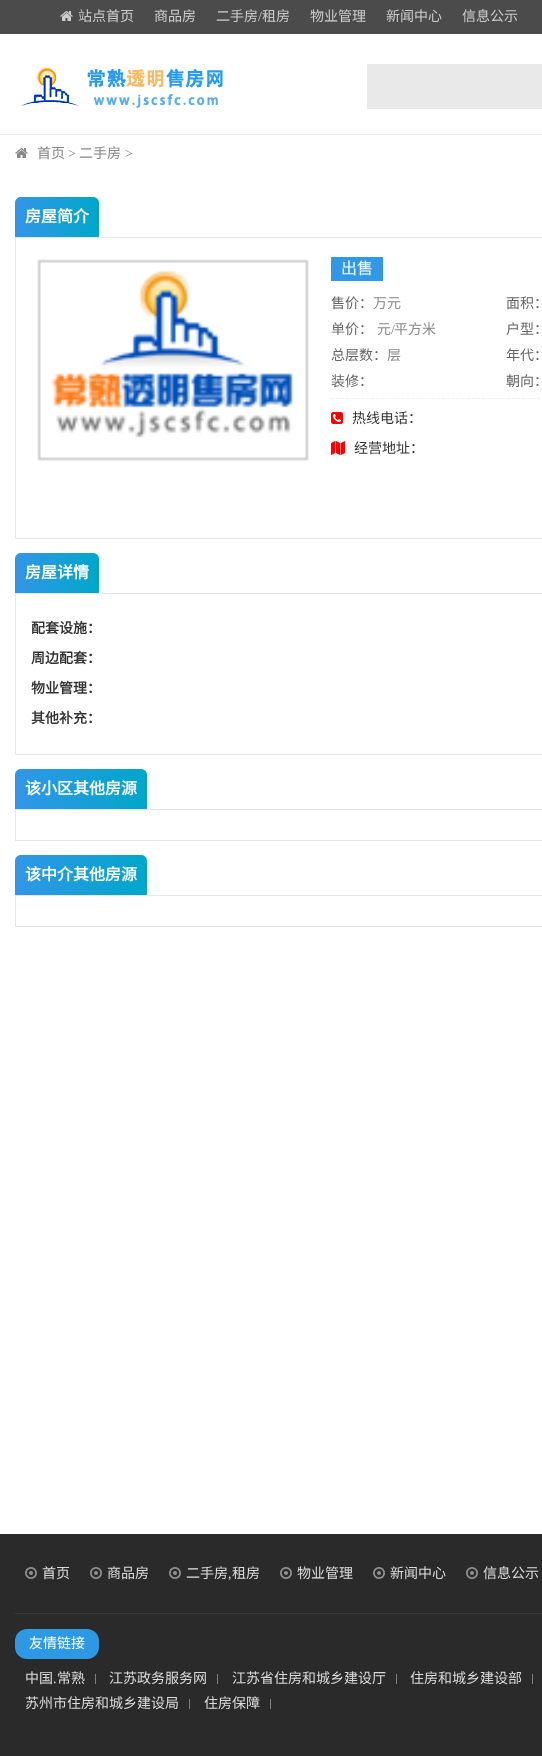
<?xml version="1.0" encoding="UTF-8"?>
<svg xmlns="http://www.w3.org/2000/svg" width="542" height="1756">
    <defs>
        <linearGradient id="g1" gradientUnits="userSpaceOnUse" x1="15" y1="217" x2="99" y2="217"><stop offset="0" stop-color="#3296E7"/><stop offset="1" stop-color="#00A7CA"/></linearGradient>
        <linearGradient id="g2" gradientUnits="userSpaceOnUse" x1="15" y1="573" x2="99" y2="573"><stop offset="0" stop-color="#3296E7"/><stop offset="1" stop-color="#00A7CA"/></linearGradient>
        <linearGradient id="g3" gradientUnits="userSpaceOnUse" x1="15" y1="789" x2="147" y2="789"><stop offset="0" stop-color="#3296E7"/><stop offset="1" stop-color="#00A7CA"/></linearGradient>
        <linearGradient id="g4" gradientUnits="userSpaceOnUse" x1="15" y1="875" x2="147" y2="875"><stop offset="0" stop-color="#3296E7"/><stop offset="1" stop-color="#00A7CA"/></linearGradient>
    </defs>
    <rect width="100%" height="100%" fill="#FFFFFF"/>
    <rect x="0" y="0" width="542" height="34" fill="#4B4B4B"/>
    <image x="60" y="11" width="13" height="10" href="img_01.png"/>
    <text x="78" y="21" font-family="Noto Sans CJK SC" font-size="14" fill="#CCCCCC">站点首页</text>
    <text x="154" y="21" font-family="Noto Sans CJK SC" font-size="14" fill="#CCCCCC">商品房</text>
    <text x="216" y="21" font-family="Noto Sans CJK SC" font-size="14" fill="#CCCCCC">二手房</text>
    <text x="258" y="21" font-family="Liberation Serif" font-size="14" fill="#CCCCCC">/</text>
    <text x="262" y="21" font-family="Noto Sans CJK SC" font-size="14" fill="#CCCCCC">租房</text>
    <text x="310" y="21" font-family="Noto Sans CJK SC" font-size="14" fill="#CCCCCC">物业管理</text>
    <text x="386" y="21" font-family="Noto Sans CJK SC" font-size="14" fill="#CCCCCC">新闻中心</text>
    <text x="462" y="21" font-family="Noto Sans CJK SC" font-size="14" fill="#CCCCCC">信息公示</text>
    <rect x="0" y="134" width="542" height="1" fill="#E9E9E9"/>
    <image x="21" y="67" width="202" height="41" href="img_02.png"/>
    <rect x="367" y="64" width="175" height="45" fill="#E9E9E9"/>
    <image x="15" y="148" width="13" height="10" href="img_03.png"/>
    <text x="37" y="158" font-family="Noto Sans CJK SC" font-size="14" fill="#888888">首页</text>
    <text x="68" y="158" font-family="Liberation Serif" font-size="14" fill="#888888">&gt;</text>
    <text x="79" y="158" font-family="Noto Sans CJK SC" font-size="14" fill="#888888">二手房</text>
    <text x="125" y="158" font-family="Liberation Serif" font-size="14" fill="#888888">&gt;</text>
    <path d="M 21 197 H 93 C 96.5 197 99 199.5 99 203 V 237 H 15 V 203 C 15 199.5 17.5 197 21 197 Z" fill="url(#g1)"/>
    <text x="25" y="222" font-family="Noto Sans CJK SC" font-size="16" font-weight="700" fill="#FFFFFF">房屋简介</text>
    <rect x="15.5" y="237.5" width="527" height="301" fill="none" stroke="#E7E7E7"/>
    <image x="37" y="259" width="272" height="202" href="img_04.png"/>
    <rect x="331" y="257" width="52" height="24" fill="#3197E7"/>
    <text x="341" y="274" font-family="Noto Sans CJK SC" font-size="16" fill="#FFFFFF">出售</text>
    <path d="M 331 398.5 H 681" fill="none" stroke="#EFEFEF" stroke-dasharray="3 2.03"/>
    <text x="331" y="308" font-family="Noto Sans CJK SC" font-size="14" fill="#666666">售价：</text>
    <text x="373" y="308" font-family="Noto Sans CJK SC" font-size="14" fill="#888888">万元</text>
    <text x="506" y="308" font-family="Noto Sans CJK SC" font-size="14" fill="#666666">面积：</text>
    <text x="331" y="334" font-family="Noto Sans CJK SC" font-size="14" fill="#666666">单价：</text>
    <text x="377" y="334" font-family="Noto Sans CJK SC" font-size="14" fill="#888888">元</text>
    <text x="391" y="334" font-family="Liberation Serif" font-size="14" fill="#888888">/</text>
    <text x="394" y="334" font-family="Noto Sans CJK SC" font-size="14" fill="#888888">平方米</text>
    <text x="506" y="334" font-family="Noto Sans CJK SC" font-size="14" fill="#666666">户型：</text>
    <text x="331" y="360" font-family="Noto Sans CJK SC" font-size="14" fill="#666666">总层数：</text>
    <text x="387" y="360" font-family="Noto Sans CJK SC" font-size="14" fill="#888888">层</text>
    <text x="506" y="360" font-family="Noto Sans CJK SC" font-size="14" fill="#666666">年代：</text>
    <text x="331" y="386" font-family="Noto Sans CJK SC" font-size="14" fill="#666666">装修：</text>
    <text x="506" y="386" font-family="Noto Sans CJK SC" font-size="14" fill="#666666">朝向：</text>
    <image x="331" y="412" width="12" height="12" href="img_05.png"/>
    <text x="352" y="423" font-family="Noto Sans CJK SC" font-size="14" fill="#333333">热线电话：</text>
    <image x="331" y="441" width="14" height="14" href="img_06.png"/>
    <text x="354" y="453" font-family="Noto Sans CJK SC" font-size="14" fill="#333333">经营地址：</text>
    <path d="M 21 553 H 93 C 96.5 553 99 555.5 99 559 V 593 H 15 V 559 C 15 555.5 17.5 553 21 553 Z" fill="url(#g2)"/>
    <text x="25" y="578" font-family="Noto Sans CJK SC" font-size="16" font-weight="700" fill="#FFFFFF">房屋详情</text>
    <rect x="15.5" y="593.5" width="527" height="161" fill="none" stroke="#E7E7E7"/>
    <text x="31" y="633" font-family="Noto Sans CJK SC" font-size="14" font-weight="700" fill="#333333">配套设施：</text>
    <text x="31" y="663" font-family="Noto Sans CJK SC" font-size="14" font-weight="700" fill="#333333">周边配套：</text>
    <text x="31" y="693" font-family="Noto Sans CJK SC" font-size="14" font-weight="700" fill="#333333">物业管理：</text>
    <text x="31" y="723" font-family="Noto Sans CJK SC" font-size="14" font-weight="700" fill="#333333">其他补充：</text>
    <path d="M 21 769 H 141 C 144.5 769 147 771.5 147 775 V 809 H 15 V 775 C 15 771.5 17.5 769 21 769 Z" fill="url(#g3)"/>
    <text x="25" y="794" font-family="Noto Sans CJK SC" font-size="16" font-weight="700" fill="#FFFFFF">该小区其他房源</text>
    <rect x="15.5" y="809.5" width="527" height="31" fill="none" stroke="#E7E7E7"/>
    <path d="M 21 855 H 141 C 144.5 855 147 857.5 147 861 V 895 H 15 V 861 C 15 857.5 17.5 855 21 855 Z" fill="url(#g4)"/>
    <text x="25" y="880" font-family="Noto Sans CJK SC" font-size="16" font-weight="700" fill="#FFFFFF">该中介其他房源</text>
    <rect x="15.5" y="895.5" width="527" height="31" fill="none" stroke="#E7E7E7"/>
    <rect x="0" y="1534" width="542" height="222" fill="#2A2A2A"/>
    <rect x="15" y="1613" width="527" height="1" fill="#393939"/>
    <image x="25" y="1567" width="12" height="12" href="img_07.png"/>
    <text x="42" y="1578" font-family="Noto Sans CJK SC" font-size="14" fill="#DCDBDB">首页</text>
    <image x="90" y="1567" width="12" height="12" href="img_07.png"/>
    <text x="107" y="1578" font-family="Noto Sans CJK SC" font-size="14" fill="#DCDBDB">商品房</text>
    <image x="169" y="1567" width="12" height="12" href="img_07.png"/>
    <text x="186" y="1578" font-family="Noto Sans CJK SC" font-size="14" fill="#DCDBDB">二手房</text>
    <text x="228" y="1578" font-family="Liberation Serif" font-size="14" fill="#DCDBDB">,</text>
    <text x="232" y="1578" font-family="Noto Sans CJK SC" font-size="14" fill="#DCDBDB">租房</text>
    <image x="280" y="1567" width="12" height="12" href="img_07.png"/>
    <text x="297" y="1578" font-family="Noto Sans CJK SC" font-size="14" fill="#DCDBDB">物业管理</text>
    <image x="373" y="1567" width="12" height="12" href="img_07.png"/>
    <text x="390" y="1578" font-family="Noto Sans CJK SC" font-size="14" fill="#DCDBDB">新闻中心</text>
    <image x="466" y="1567" width="12" height="12" href="img_07.png"/>
    <text x="483" y="1578" font-family="Noto Sans CJK SC" font-size="14" fill="#DCDBDB">信息公示</text>
    <rect x="15" y="1629" width="84" height="30" rx="12" fill="#2D98E4"/>
    <text x="29" y="1648" font-family="Noto Sans CJK SC" font-size="14" fill="#FFFFFF">友情链接</text>
    <rect x="95" y="1674" width="1" height="10" fill="#808080"/>
    <text x="25" y="1683" font-family="Noto Sans CJK SC" font-size="14" fill="#DCDBDB">中国</text>
    <text x="53" y="1683" font-family="Liberation Serif" font-size="14" fill="#DCDBDB">.</text>
    <text x="57" y="1683" font-family="Noto Sans CJK SC" font-size="14" fill="#DCDBDB">常熟</text>
    <rect x="217" y="1674" width="1" height="10" fill="#808080"/>
    <text x="109" y="1683" font-family="Noto Sans CJK SC" font-size="14" fill="#DCDBDB">江苏政务服务网</text>
    <rect x="396" y="1674" width="1" height="10" fill="#808080"/>
    <text x="232" y="1683" font-family="Noto Sans CJK SC" font-size="14" fill="#DCDBDB">江苏省住房和城乡建设厅</text>
    <rect x="532" y="1674" width="1" height="10" fill="#808080"/>
    <text x="410" y="1683" font-family="Noto Sans CJK SC" font-size="14" fill="#DCDBDB">住房和城乡建设部</text>
    <rect x="189" y="1699" width="1" height="10" fill="#808080"/>
    <text x="25" y="1708" font-family="Noto Sans CJK SC" font-size="14" fill="#DCDBDB">苏州市住房和城乡建设局</text>
    <rect x="270" y="1699" width="1" height="10" fill="#808080"/>
    <text x="204" y="1708" font-family="Noto Sans CJK SC" font-size="14" fill="#DCDBDB">住房保障</text>
</svg>
